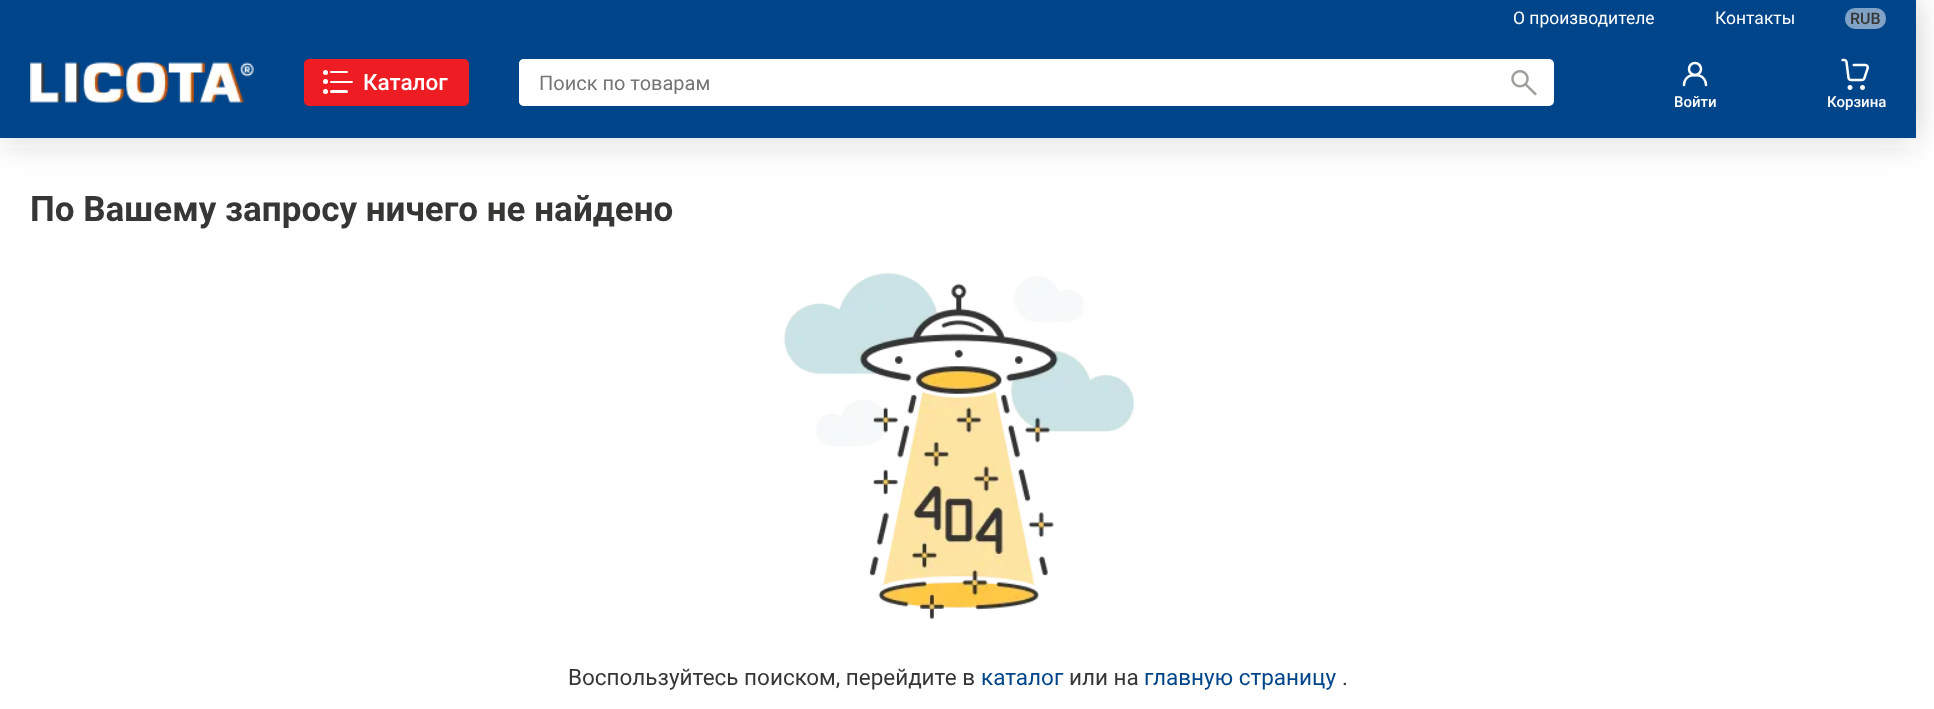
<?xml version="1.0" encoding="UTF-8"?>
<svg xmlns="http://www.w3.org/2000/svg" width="1934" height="709">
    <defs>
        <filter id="blur1" x="-50%" y="-200%" width="200%" height="500%"><feGaussianBlur stdDeviation="15"/></filter>
    </defs>
    <rect width="100%" height="100%" fill="#FFFFFF"/>
    <rect x="0" y="10" width="1916" height="138" fill="#353534" fill-opacity="0.1" filter="url(#blur1)"/>
    <rect x="0" y="-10" width="1916" height="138" fill="#353534" fill-opacity="0.1" filter="url(#blur1)"/>
    <rect x="0" y="0" width="1916" height="138" fill="#00458A"/>
    <text x="1513" y="24" font-family="Roboto" font-size="17.5" fill="#FFFFFF">О производителе</text>
    <text x="1715" y="24" font-family="Roboto" font-size="17.5" fill="#FFFFFF">Контакты</text>
    <rect x="1845" y="8" width="41" height="21" rx="10" fill="#80A2C6"/>
    <text x="1850" y="24" font-family="Roboto" font-size="16" font-weight="500" fill="#363635">RUB</text>
    <image x="30" y="62" width="224" height="41" href="img_01.png"/>
    <rect x="305.5" y="60.5" width="162" height="44" rx="3.5" fill="#ED1D23" stroke="#ED1D23" stroke-width="3"/>
    <rect x="330" y="71" width="18" height="2" rx="1" fill="#FFFFFF"/>
    <circle cx="325.5" cy="72.5" r="2.5" fill="#FFFFFF"/>
    <circle cx="325.5" cy="81.5" r="2.5" fill="#FFFFFF"/>
    <circle cx="325.5" cy="91.5" r="2.5" fill="#FFFFFF"/>
    <rect x="330" y="81" width="23" height="2" rx="1" fill="#FFFFFF"/>
    <rect x="330" y="90" width="18" height="3" rx="1.5" fill="#FFFFFF"/>
    <text x="363" y="90" font-family="Roboto" font-size="22.5" font-weight="500" fill="#FFFFFF">Каталог</text>
    <rect x="519" y="59" width="1035" height="47" rx="5" fill="#FFFFFF"/>
    <rect x="519" y="59" width="955" height="47" rx="5" fill="#FFFFFF"/>
    <text x="539" y="90" font-family="Roboto" font-size="20" fill="#757575">Поиск по товарам</text>
    <image x="1511" y="70" width="26" height="26" href="img_02.png"/>
    <path d="M 1706 85 C 1706 81 1703.5 76.5 1699 75.5 L 1695 75 L 1691 75.5 C 1686.5 76.5 1684 81 1684 85" fill="none" stroke="#FFFFFF" stroke-width="2.5" stroke-linecap="round"/>
    <circle cx="1695" cy="69" r="6" fill="none" stroke="#FFFFFF" stroke-width="2.5"/>
    <text x="1674" y="107" font-family="Roboto" font-size="15" font-weight="500" fill="#FFFFFF">Войти</text>
    <image x="1841" y="58" width="28" height="32" href="img_03.png"/>
    <text x="1827" y="107" font-family="Roboto" font-size="15" font-weight="500" fill="#FFFFFF">Корзина</text>
    <text x="30" y="221" font-family="Roboto" font-size="35" font-weight="700" fill="#363635">По Вашему запросу ничего не найдено</text>
    <image x="783" y="272" width="351" height="347" href="img_04.png"/>
    <text x="568" y="685" font-family="Roboto" font-size="22.5" fill="#363635">Воспользуйтесь поиском, перейдите в</text>
    <text x="981" y="685" font-family="Roboto" font-size="22.5" fill="#00458A">каталог</text>
    <text x="1069" y="685" font-family="Roboto" font-size="22.5" fill="#363635">или на</text>
    <text x="1144" y="685" font-family="Roboto" font-size="22.5" fill="#00458A">главную страницу</text>
    <text x="1342" y="685" font-family="Roboto" font-size="22.5" fill="#363635">.</text>
</svg>
